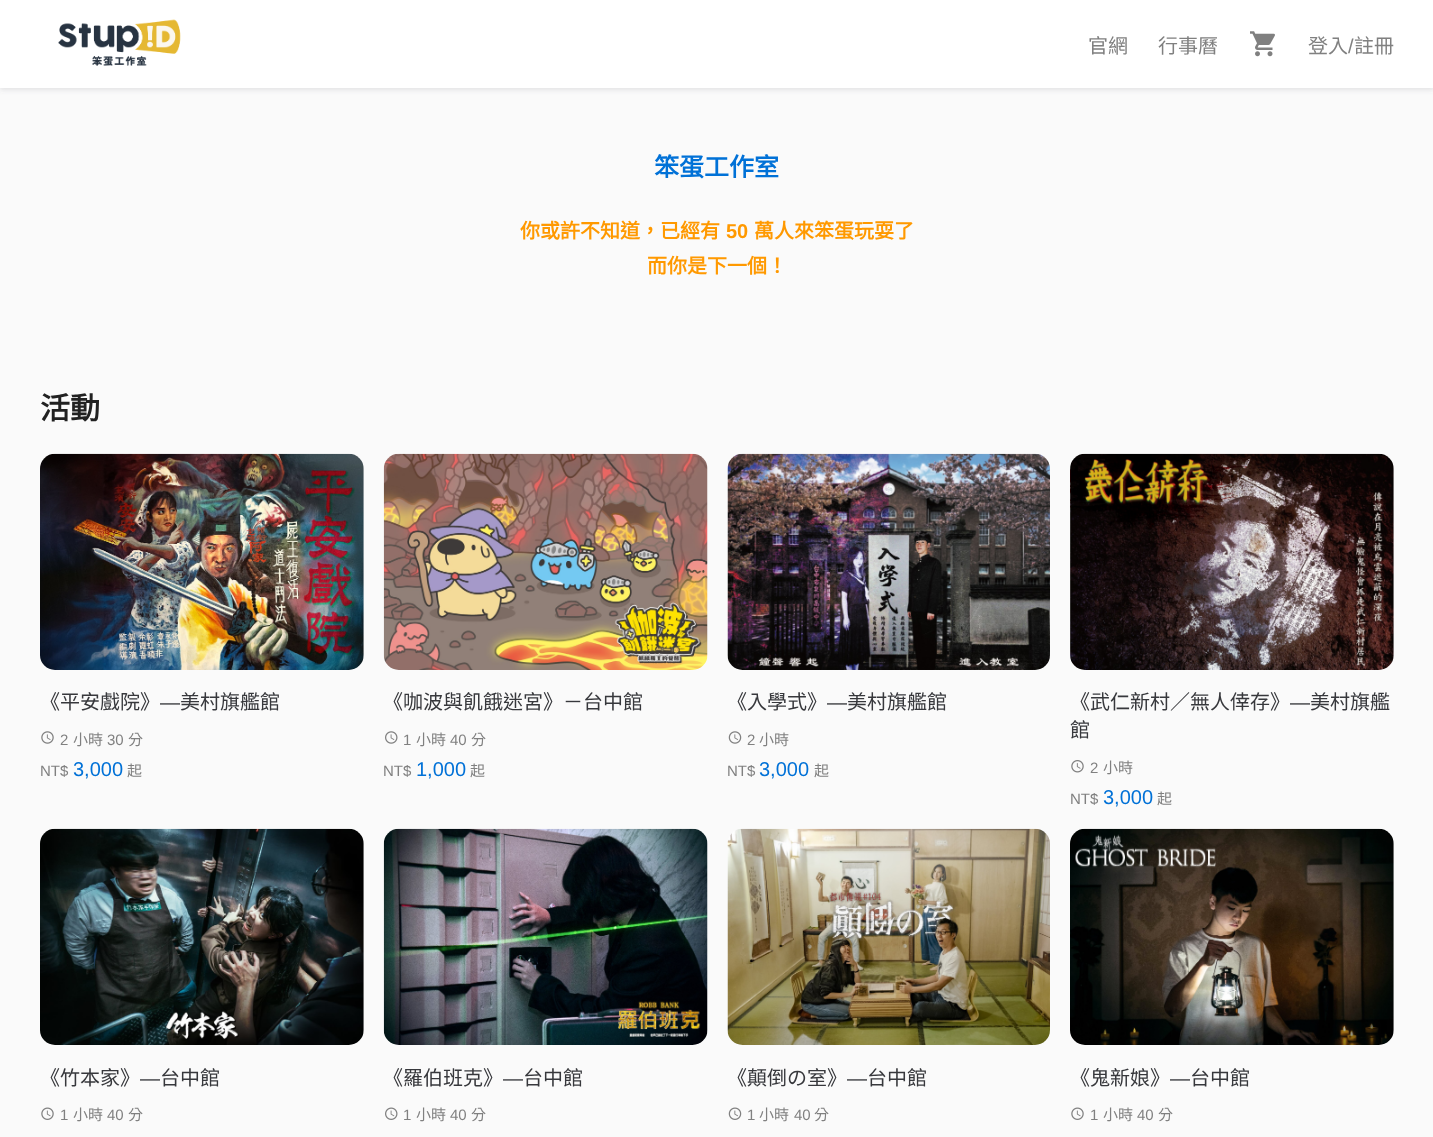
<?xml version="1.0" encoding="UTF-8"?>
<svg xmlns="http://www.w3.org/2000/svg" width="1433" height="1137">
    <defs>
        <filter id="blur1" x="-50%" y="-200%" width="200%" height="500%"><feGaussianBlur stdDeviation="2.5"/></filter>
    </defs>
    <rect width="100%" height="100%" fill="#FAFAFA"/>
    <rect x="0" y="3" width="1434" height="87" fill="#606170" fill-opacity="0.16" filter="url(#blur1)"/>
    <rect x="0" y="0" width="1433" height="88" fill="#FFFFFF"/>
    <image x="58" y="19" width="123" height="47" href="img_01.png"/>
    <text x="1088" y="53" font-family="Noto Sans CJK TC" font-size="20" fill="#808080">官網</text>
    <text x="1158" y="53" font-family="Noto Sans CJK TC" font-size="20" fill="#808080">行事曆</text>
    <image x="1250" y="31" width="25" height="26" href="img_02.png"/>
    <text x="1308" y="53" font-family="Noto Sans CJK TC" font-size="20" fill="#808080">登入</text>
    <text x="1348" y="53" font-family="Liberation Sans" font-size="20" fill="#808080">/</text>
    <text x="1354" y="53" font-family="Noto Sans CJK TC" font-size="20" fill="#808080">註冊</text>
    <text x="654" y="176" font-family="Noto Sans CJK TC" font-size="25" font-weight="700" fill="#0071D7">笨蛋工作室</text>
    <text x="520" y="238" font-family="Noto Sans CJK TC" font-size="20" font-weight="700" fill="#FF9900">你或許不知道，已經有</text>
    <text x="726" y="238" font-family="Liberation Sans" font-size="20" font-weight="700" fill="#FF9900">50</text>
    <text x="754" y="238" font-family="Noto Sans CJK TC" font-size="20" font-weight="700" fill="#FF9900">萬人來笨蛋玩耍了</text>
    <text x="647" y="273" font-family="Noto Sans CJK TC" font-size="20" font-weight="700" fill="#FF9900">而你是下一個！</text>
    <text x="40" y="419" font-family="Noto Sans CJK TC" font-size="30" font-weight="700" fill="#212121">活動</text>
    <image x="40" y="453" width="324" height="217" href="img_03.png"/>
    <text x="40" y="709" font-family="Noto Sans CJK TC" font-size="20" fill="#37383C">《平安戲院》</text>
    <text x="160" y="709" font-family="Liberation Sans" font-size="20" fill="#37383C">—</text>
    <text x="180" y="709" font-family="Noto Sans CJK TC" font-size="20" fill="#37383C">美村旗艦館</text>
    <image x="41" y="731" width="13" height="13" href="img_04.png"/>
    <text x="60" y="745" font-family="Liberation Sans" font-size="15" fill="#808080">2</text>
    <text x="73" y="745" font-family="Noto Sans CJK TC" font-size="15" fill="#808080">小時</text>
    <text x="107" y="745" font-family="Liberation Sans" font-size="15" fill="#808080">30</text>
    <text x="128" y="745" font-family="Noto Sans CJK TC" font-size="15" fill="#808080">分</text>
    <text x="40" y="776" font-family="Liberation Sans" font-size="15" fill="#808080">NT$</text>
    <text x="73" y="776" font-family="Liberation Sans" font-size="20" fill="#0071D7">3,000</text>
    <text x="127" y="776" font-family="Noto Sans CJK TC" font-size="15" fill="#808080">起</text>
    <image x="383" y="453" width="325" height="217" href="img_05.png"/>
    <text x="383" y="709" font-family="Noto Sans CJK TC" font-size="20" fill="#37383C">《咖波與飢餓迷宮》－台中館</text>
    <image x="385" y="731" width="13" height="13" href="img_06.png"/>
    <text x="403" y="745" font-family="Liberation Sans" font-size="15" fill="#808080">1</text>
    <text x="416" y="745" font-family="Noto Sans CJK TC" font-size="15" fill="#808080">小時</text>
    <text x="450" y="745" font-family="Liberation Sans" font-size="15" fill="#808080">40</text>
    <text x="471" y="745" font-family="Noto Sans CJK TC" font-size="15" fill="#808080">分</text>
    <text x="383" y="776" font-family="Liberation Sans" font-size="15" fill="#808080">NT$</text>
    <text x="416" y="776" font-family="Liberation Sans" font-size="20" fill="#0071D7">1,000</text>
    <text x="470" y="776" font-family="Noto Sans CJK TC" font-size="15" fill="#808080">起</text>
    <image x="727" y="453" width="323" height="217" href="img_07.png"/>
    <text x="727" y="709" font-family="Noto Sans CJK TC" font-size="20" fill="#37383C">《入學式》</text>
    <text x="827" y="709" font-family="Liberation Sans" font-size="20" fill="#37383C">—</text>
    <text x="847" y="709" font-family="Noto Sans CJK TC" font-size="20" fill="#37383C">美村旗艦館</text>
    <image x="728" y="731" width="14" height="13" href="img_08.png"/>
    <text x="747" y="745" font-family="Liberation Sans" font-size="15" fill="#808080">2</text>
    <text x="759" y="745" font-family="Noto Sans CJK TC" font-size="15" fill="#808080">小時</text>
    <text x="727" y="776" font-family="Liberation Sans" font-size="15" fill="#808080">NT$</text>
    <text x="759" y="776" font-family="Liberation Sans" font-size="20" fill="#0071D7">3,000</text>
    <text x="814" y="776" font-family="Noto Sans CJK TC" font-size="15" fill="#808080">起</text>
    <image x="1070" y="453" width="324" height="217" href="img_09.png"/>
    <text x="1070" y="709" font-family="Noto Sans CJK TC" font-size="20" fill="#37383C">《武仁新村／無人倖存》</text>
    <text x="1290" y="709" font-family="Liberation Sans" font-size="20" fill="#37383C">—</text>
    <text x="1310" y="709" font-family="Noto Sans CJK TC" font-size="20" fill="#37383C">美村旗艦</text>
    <text x="1070" y="737" font-family="Noto Sans CJK TC" font-size="20" fill="#37383C">館</text>
    <image x="1071" y="760" width="13" height="13" href="img_10.png"/>
    <text x="1090" y="773" font-family="Liberation Sans" font-size="15" fill="#808080">2</text>
    <text x="1103" y="773" font-family="Noto Sans CJK TC" font-size="15" fill="#808080">小時</text>
    <text x="1070" y="804" font-family="Liberation Sans" font-size="15" fill="#808080">NT$</text>
    <text x="1103" y="804" font-family="Liberation Sans" font-size="20" fill="#0071D7">3,000</text>
    <text x="1157" y="804" font-family="Noto Sans CJK TC" font-size="15" fill="#808080">起</text>
    <image x="40" y="828" width="324" height="217" href="img_11.png"/>
    <text x="40" y="1085" font-family="Noto Sans CJK TC" font-size="20" fill="#37383C">《竹本家》</text>
    <text x="140" y="1085" font-family="Liberation Sans" font-size="20" fill="#37383C">—</text>
    <text x="160" y="1085" font-family="Noto Sans CJK TC" font-size="20" fill="#37383C">台中館</text>
    <image x="41" y="1107" width="13" height="13" href="img_12.png"/>
    <text x="60" y="1120" font-family="Liberation Sans" font-size="15" fill="#808080">1</text>
    <text x="73" y="1120" font-family="Noto Sans CJK TC" font-size="15" fill="#808080">小時</text>
    <text x="107" y="1120" font-family="Liberation Sans" font-size="15" fill="#808080">40</text>
    <text x="128" y="1120" font-family="Noto Sans CJK TC" font-size="15" fill="#808080">分</text>
    <image x="383" y="828" width="325" height="217" href="img_13.png"/>
    <text x="383" y="1085" font-family="Noto Sans CJK TC" font-size="20" fill="#37383C">《羅伯班克》</text>
    <text x="503" y="1085" font-family="Liberation Sans" font-size="20" fill="#37383C">—</text>
    <text x="523" y="1085" font-family="Noto Sans CJK TC" font-size="20" fill="#37383C">台中館</text>
    <image x="385" y="1107" width="13" height="13" href="img_14.png"/>
    <text x="403" y="1120" font-family="Liberation Sans" font-size="15" fill="#808080">1</text>
    <text x="416" y="1120" font-family="Noto Sans CJK TC" font-size="15" fill="#808080">小時</text>
    <text x="450" y="1120" font-family="Liberation Sans" font-size="15" fill="#808080">40</text>
    <text x="471" y="1120" font-family="Noto Sans CJK TC" font-size="15" fill="#808080">分</text>
    <image x="727" y="828" width="323" height="217" href="img_15.png"/>
    <text x="727" y="1085" font-family="Noto Sans CJK TC" font-size="20" fill="#37383C">《顛倒の室》</text>
    <text x="847" y="1085" font-family="Liberation Sans" font-size="20" fill="#37383C">—</text>
    <text x="867" y="1085" font-family="Noto Sans CJK TC" font-size="20" fill="#37383C">台中館</text>
    <image x="728" y="1107" width="14" height="13" href="img_16.png"/>
    <text x="747" y="1120" font-family="Liberation Sans" font-size="15" fill="#808080">1</text>
    <text x="759" y="1120" font-family="Noto Sans CJK TC" font-size="15" fill="#808080">小時</text>
    <text x="794" y="1120" font-family="Liberation Sans" font-size="15" fill="#808080">40</text>
    <text x="814" y="1120" font-family="Noto Sans CJK TC" font-size="15" fill="#808080">分</text>
    <image x="1070" y="828" width="324" height="217" href="img_17.png"/>
    <text x="1070" y="1085" font-family="Noto Sans CJK TC" font-size="20" fill="#37383C">《鬼新娘》</text>
    <text x="1170" y="1085" font-family="Liberation Sans" font-size="20" fill="#37383C">—</text>
    <text x="1190" y="1085" font-family="Noto Sans CJK TC" font-size="20" fill="#37383C">台中館</text>
    <image x="1071" y="1107" width="13" height="13" href="img_12.png"/>
    <text x="1090" y="1120" font-family="Liberation Sans" font-size="15" fill="#808080">1</text>
    <text x="1103" y="1120" font-family="Noto Sans CJK TC" font-size="15" fill="#808080">小時</text>
    <text x="1137" y="1120" font-family="Liberation Sans" font-size="15" fill="#808080">40</text>
    <text x="1158" y="1120" font-family="Noto Sans CJK TC" font-size="15" fill="#808080">分</text>
</svg>
